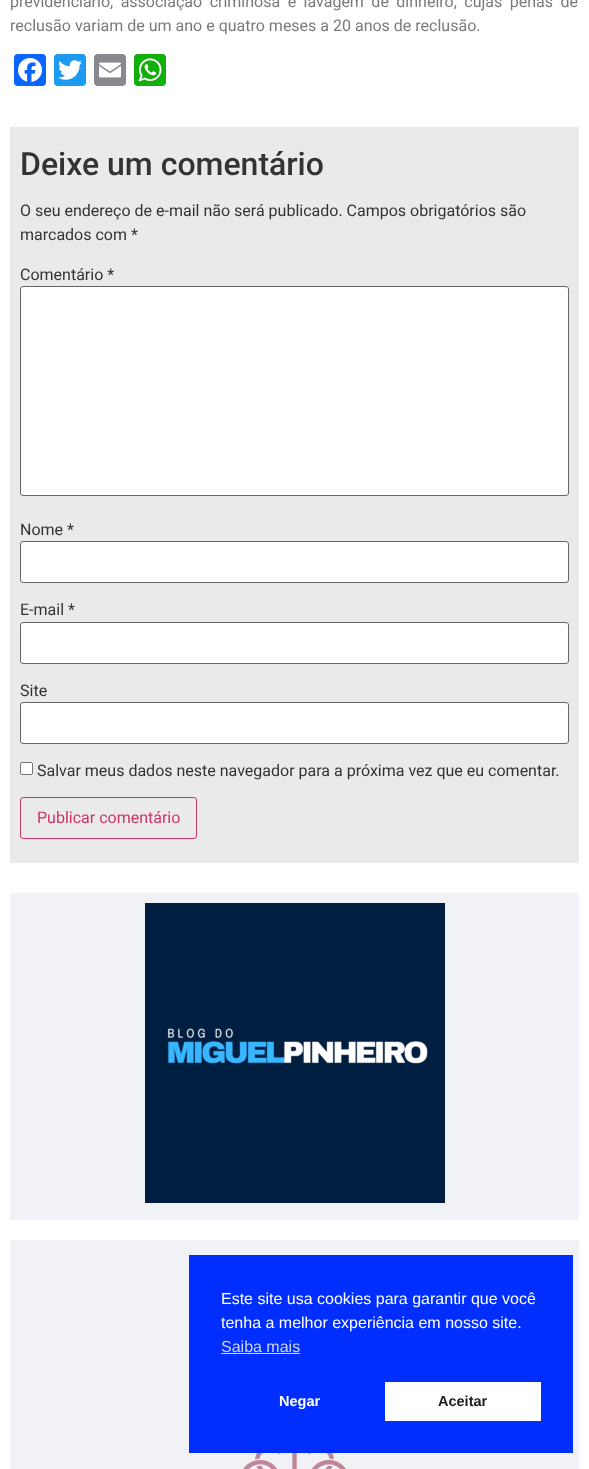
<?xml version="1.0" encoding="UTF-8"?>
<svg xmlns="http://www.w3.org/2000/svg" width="589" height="1469">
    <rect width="100%" height="100%" fill="#FFFFFF"/>
    <text font-family="Roboto" font-size="16" fill="#7A7A7A">
        <tspan x="10" y="7" word-spacing="3.5">previdenciário, associação criminosa e lavagem de dinheiro, cujas penas de</tspan>
        <tspan x="10" y="31">reclusão variam de um ano e quatro meses a 20 anos de reclusão.</tspan>
    </text>
    <rect x="14" y="54" width="32" height="32" rx="4" fill="#0866FF"/>
    <image x="18" y="58" width="24" height="24" href="img_01.png"/>
    <rect x="54" y="54" width="32" height="32" rx="4" fill="#1D9BF0"/>
    <image x="58" y="60" width="24" height="20" href="img_02.png"/>
    <rect x="94" y="54" width="32" height="32" rx="4" fill="#888990"/>
    <image x="99" y="62" width="22" height="16" href="img_03.png"/>
    <rect x="134" y="54" width="32" height="32" rx="4" fill="#12AF0A"/>
    <image x="138" y="58" width="24" height="24" href="img_04.png"/>
    <rect x="10" y="127" width="569" height="736" fill="#EAEAEA"/>
    <text x="20" y="175" font-family="Roboto" font-size="32" font-weight="500" fill="#333333">Deixe um comentário</text>
    <text font-family="Roboto" font-size="16" fill="#333333">
        <tspan x="20" y="216">O seu endereço de e-mail não será publicado. Campos obrigatórios são</tspan>
        <tspan x="20" y="240">marcados com *</tspan>
    </text>
    <text x="20" y="280" font-family="Roboto" font-size="16" fill="#333333">Comentário *</text>
    <rect x="20.5" y="286.5" width="548" height="209" rx="2.5" fill="#FFFFFF" stroke="#666666"/>
    <text x="20" y="535" font-family="Roboto" font-size="16" fill="#333333">Nome *</text>
    <rect x="20.5" y="541.5" width="548" height="41" rx="2.5" fill="#FFFFFF" stroke="#666666"/>
    <text x="20" y="615" font-family="Roboto" font-size="16" fill="#333333">E-mail *</text>
    <rect x="20.5" y="622.5" width="548" height="41" rx="2.5" fill="#FFFFFF" stroke="#666666"/>
    <text x="20" y="696" font-family="Roboto" font-size="16" fill="#333333">Site</text>
    <rect x="20.5" y="702.5" width="548" height="41" rx="2.5" fill="#FFFFFF" stroke="#666666"/>
    <rect x="20.5" y="762.5" width="12" height="12" rx="1.5" fill="#FFFFFF" stroke="#767676"/>
    <text x="37" y="776" font-family="Roboto" font-size="16" fill="#333333">Salvar meus dados neste navegador para a próxima vez que eu comentar.</text>
    <rect x="20.5" y="797.5" width="176" height="41" rx="2.5" fill="none" stroke="#CC3366"/>
    <text x="37" y="823" font-family="Roboto" font-size="16" fill="#CC3366">Publicar comentário</text>
    <rect x="10" y="893" width="569" height="327" fill="#F1F2F6"/>
    <image x="145" y="903" width="300" height="300" href="img_05.png"/>
    <rect x="10" y="1240" width="569" height="229" fill="#F1F2F6"/>
    <image x="243" y="1453" width="103" height="16" href="img_06.png"/>
    <rect x="189" y="1255" width="384" height="198" fill="#002EFF"/>
    <text font-family="Liberation Sans" font-size="16" fill="#FFFFFF">
        <tspan x="221" y="1304">Este site usa cookies para garantir que você</tspan>
        <tspan x="221" y="1328">tenha a melhor experiência em nosso site.</tspan>
    </text>
    <text x="221" y="1352" font-family="Liberation Sans" font-size="16" fill="#CCD5FF">Saiba mais</text>
    <rect x="221" y="1353" width="79" height="1" fill="#CCD5FF"/>
    <text x="279" y="1406" font-family="Liberation Sans" font-size="14.5" font-weight="700" fill="#FFFFFF">Negar</text>
    <rect x="385" y="1382" width="156" height="39" fill="#FFFFFF"/>
    <text x="438" y="1406" font-family="Liberation Sans" font-size="14.5" font-weight="700" fill="#202020">Aceitar</text>
</svg>
